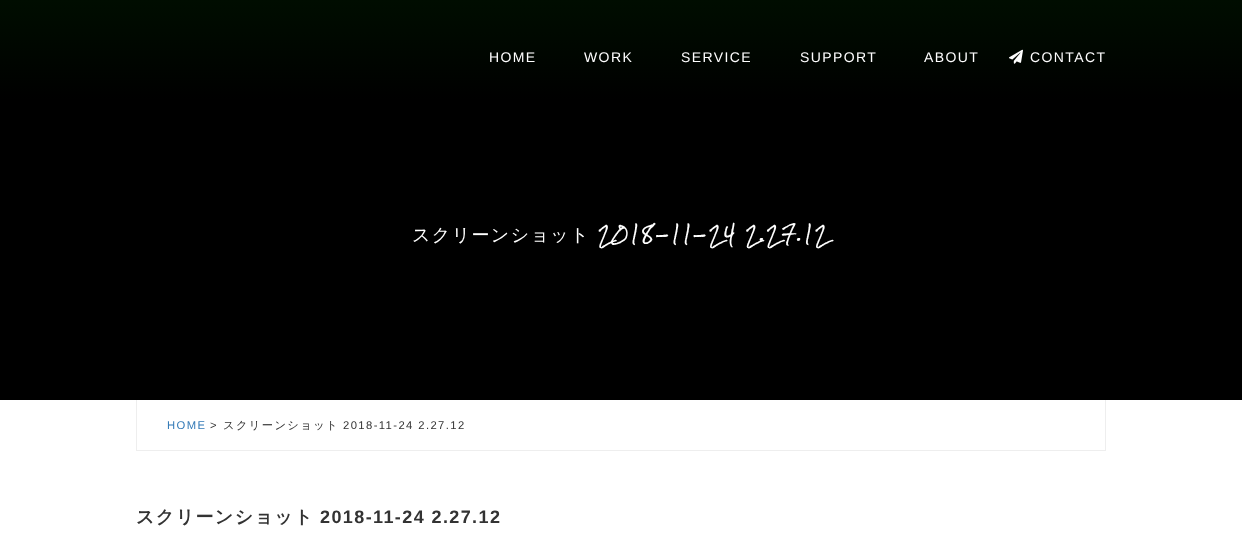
<?xml version="1.0" encoding="UTF-8"?>
<svg xmlns="http://www.w3.org/2000/svg" width="1242" height="535">
    <defs>
        <linearGradient id="g1" gradientUnits="userSpaceOnUse" x1="621" y1="0" x2="621" y2="100"><stop offset="0" stop-color="#000D00"/><stop offset="1" stop-color="#000000"/></linearGradient>
    </defs>
    <rect width="100%" height="100%" fill="#FFFFFF"/>
    <rect x="0" y="0" width="1242" height="100" fill="url(#g1)"/>
    <text x="489" y="62" font-family="Liberation Sans" font-size="14" letter-spacing="1.4" fill="#FFFFFF">HOME</text>
    <text x="584" y="62" font-family="Liberation Sans" font-size="14" letter-spacing="1.4" fill="#FFFFFF">WORK</text>
    <text x="681" y="62" font-family="Liberation Sans" font-size="14" letter-spacing="1.4" fill="#FFFFFF">SERVICE</text>
    <text x="800" y="62" font-family="Liberation Sans" font-size="14" letter-spacing="1.4" fill="#FFFFFF">SUPPORT</text>
    <text x="924" y="62" font-family="Liberation Sans" font-size="14" letter-spacing="1.4" fill="#FFFFFF">ABOUT</text>
    <image x="1009" y="49" width="14" height="15" href="img_01.png"/>
    <text x="1030" y="62" font-family="Liberation Sans" font-size="14" letter-spacing="1.4" fill="#FFFFFF">CONTACT</text>
    <rect x="0" y="100" width="1242" height="300" fill="#000000"/>
    <text x="412" y="241" font-family="WenQuanYi Zen Hei" font-size="18" font-weight="500" letter-spacing="1.4" fill="#FFFFFF">スクリーンショット</text>
    <text x="598" y="241" font-family="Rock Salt" font-size="18" letter-spacing="1.4" fill="#FFFFFF">2018-11-24 2.27.12</text>
    <rect x="1105" y="400" width="1" height="51" fill="#EEEEEE"/>
    <rect x="136" y="450" width="970" height="1" fill="#EEEEEE"/>
    <rect x="136" y="400" width="1" height="51" fill="#EEEEEE"/>
    <text x="167" y="429" font-family="Liberation Sans" font-size="11.25" letter-spacing="1.4" fill="#337AB7">HOME</text>
    <text x="210" y="429" font-family="Liberation Sans" font-size="11.25" letter-spacing="1.4" fill="#333333">&gt;</text>
    <text x="223" y="429" font-family="WenQuanYi Zen Hei" font-size="11.25" font-weight="500" letter-spacing="1.4" fill="#333333">スクリーンショット</text>
    <text x="343" y="429" font-family="Liberation Sans" font-size="11.25" letter-spacing="1.4" fill="#333333">2018-11-24 2.27.12</text>
    <text x="136" y="523" font-family="WenQuanYi Zen Hei" font-size="18" font-weight="700" letter-spacing="1.4" fill="#333333">スクリーンショット</text>
    <text x="320" y="523" font-family="Liberation Sans" font-size="18" font-weight="700" letter-spacing="1.4" fill="#333333">2018-11-24 2.27.12</text>
</svg>
